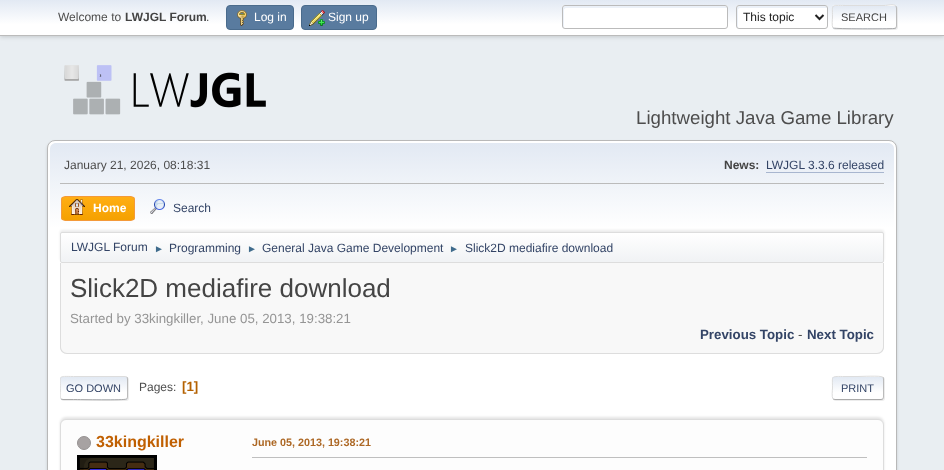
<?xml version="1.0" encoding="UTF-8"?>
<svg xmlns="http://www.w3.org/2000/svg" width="944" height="470">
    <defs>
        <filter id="blur1" x="-50%" y="-200%" width="200%" height="500%"><feGaussianBlur stdDeviation="2"/></filter>
        <linearGradient id="g1" gradientUnits="userSpaceOnUse" x1="472" y1="0" x2="472" y2="35"><stop offset="0" stop-color="#E2E9F3"/><stop offset="0.7" stop-color="#FFFFFF"/></linearGradient>
        <filter id="blur2" x="-50%" y="-200%" width="200%" height="500%"><feGaussianBlur stdDeviation="0.5"/></filter>
        <clipPath id="clip1"><rect x="832" y="5" width="65" height="24" rx="3"/></clipPath>
        <linearGradient id="g2" gradientUnits="userSpaceOnUse" x1="865" y1="-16" x2="865" y2="6"><stop offset="0" stop-color="#E2E9F3"/><stop offset="0.7" stop-color="#FFFFFF"/></linearGradient>
        <linearGradient id="g3" gradientUnits="userSpaceOnUse" x1="865" y1="6" x2="865" y2="28"><stop offset="0" stop-color="#E2E9F3"/><stop offset="0.7" stop-color="#FFFFFF"/></linearGradient>
        <linearGradient id="g4" gradientUnits="userSpaceOnUse" x1="865" y1="28" x2="865" y2="50"><stop offset="0" stop-color="#E2E9F3"/><stop offset="0.7" stop-color="#FFFFFF"/></linearGradient>
        <filter id="blur3" x="-50%" y="-200%" width="200%" height="500%"><feGaussianBlur stdDeviation="1.5"/></filter>
        <linearGradient id="g5" gradientUnits="userSpaceOnUse" x1="472" y1="143" x2="472" y2="265"><stop offset="0" stop-color="#E2E9F3"/><stop offset="0.7" stop-color="#FFFFFF"/></linearGradient>
        <clipPath id="clip2"><rect x="61" y="196" width="74" height="25" rx="4"/></clipPath>
        <linearGradient id="g6" gradientUnits="userSpaceOnUse" x1="98" y1="197" x2="98" y2="220"><stop offset="0" stop-color="#FFAE14"/><stop offset="1" stop-color="#F5A100"/></linearGradient>
        <filter id="blur4" x="-50%" y="-200%" width="200%" height="500%"><feGaussianBlur stdDeviation="1"/></filter>
        <clipPath id="clip3"><rect x="60" y="232" width="824" height="31" rx="2"/></clipPath>
        <linearGradient id="g7" gradientUnits="userSpaceOnUse" x1="472" y1="233" x2="472" y2="262"><stop offset="0" stop-color="#FFFFFF"/><stop offset="0.95" stop-color="#F1F3F5"/></linearGradient>
        <clipPath id="clip4"><rect x="60" y="376" width="68" height="24" rx="3"/></clipPath>
        <linearGradient id="g8" gradientUnits="userSpaceOnUse" x1="94" y1="377" x2="94" y2="399"><stop offset="0" stop-color="#E2E9F3"/><stop offset="0.7" stop-color="#FFFFFF"/></linearGradient>
        <linearGradient id="g9" gradientUnits="userSpaceOnUse" x1="94" y1="399" x2="94" y2="421"><stop offset="0" stop-color="#E2E9F3"/><stop offset="0.7" stop-color="#FFFFFF"/></linearGradient>
        <clipPath id="clip5"><rect x="60" y="369" width="824" height="38"/></clipPath>
        <clipPath id="clip6"><path d="M 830 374 H 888 V 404 H 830 Z M 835 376 H 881 C 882.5 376 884 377.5 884 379 V 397 C 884 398.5 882.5 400 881 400 H 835 C 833.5 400 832 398.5 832 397 V 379 C 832 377.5 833.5 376 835 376 Z" clip-rule="evenodd"/></clipPath>
        <clipPath id="clip7"><rect x="832" y="376" width="52" height="24" rx="3"/></clipPath>
        <linearGradient id="g10" gradientUnits="userSpaceOnUse" x1="858" y1="377" x2="858" y2="399"><stop offset="0" stop-color="#E2E9F3"/><stop offset="0.7" stop-color="#FFFFFF"/></linearGradient>
    </defs>
    <rect width="100%" height="100%" fill="#E9EEF2"/>
    <rect x="0" y="1" width="944" height="36" fill="#000000" fill-opacity="0.16" filter="url(#blur1)"/>
    <rect x="0" y="0" width="944" height="35" fill="url(#g1)"/>
    <rect x="0" y="35" width="944" height="1" fill="#BBBBBB"/>
    <text x="58" y="21" font-family="Liberation Sans" font-size="12" fill="#4D4D4D">Welcome to</text>
    <text x="125" y="21" font-family="Liberation Sans" font-size="12" font-weight="700" fill="#444444">LWJGL Forum</text>
    <text x="206" y="21" font-family="Liberation Sans" font-size="12" fill="#4D4D4D">.</text>
    <rect x="226.5" y="5.5" width="67" height="24" rx="3.5" fill="#597B9F" stroke="#4A6B8C"/>
    <image x="237" y="10" width="10" height="16" href="img_01.png"/>
    <text x="254" y="21" font-family="Liberation Sans" font-size="12" fill="#FFFFFF">Log in</text>
    <rect x="301.5" y="5.5" width="75" height="24" rx="3.5" fill="#597B9F" stroke="#4A6B8C"/>
    <image x="309" y="10" width="16" height="16" href="img_02.png"/>
    <text x="328" y="21" font-family="Liberation Sans" font-size="12" fill="#FFFFFF">Sign up</text>
    <rect x="562" y="5" width="166" height="24" rx="3" fill="#FFFFFF"/>
    <path d="M 566 8 H 727 V 7 L 725 6 H 565 C 564 6 563 7 563 8 C 563 11 562 27 564 28 V 10 C 564 9 565 8 566 8 Z" fill="#ECF1F8"/>
    <rect x="562.5" y="5.5" width="165" height="23" rx="2.5" fill="none" stroke="#BBBBBB"/>
    <rect x="736" y="5" width="92" height="24" rx="3" fill="#FFFFFF"/>
    <path d="M 740 8 H 827 C 827 3 815 6 811 6 H 753 C 735 6 737 2 737 17 C 737 19 736 27 738 28 V 10 C 738 9 739 8 740 8 Z" fill="#ECF1F8"/>
    <rect x="736.5" y="5.5" width="91" height="23" rx="2.5" fill="none" stroke="#BBBBBB"/>
    <path d="M 815.5 15 L 819.5 19 L 823.5 15" fill="none" stroke="#222222" stroke-width="2"/>
    <text x="743" y="21" font-family="Liberation Sans" font-size="12" fill="#222222">This topic</text>
    <rect x="833" y="6" width="65" height="24" rx="3" fill="#DDDDDD" fill-opacity="0.57" filter="url(#blur2)"/>
    <g clip-path="url(#clip1)">
        <rect x="832" y="5" width="65" height="1" fill="url(#g2)"/>
        <rect x="832" y="6" width="65" height="22" fill="url(#g3)"/>
        <rect x="832" y="28" width="65" height="1" fill="url(#g4)"/>
    </g>
    <path d="M 896 6 C 896 6.5 896.5 7.5 896.5 8 V 26 C 896.5 26.5 896 27.5 896 28" fill="none" stroke="#BBBBBB"/>
    <path d="M 896 28 L 894 28.5 C 889 29 834.5 29 833.5 28 H 833" fill="none" stroke="#AAAAAA"/>
    <path d="M 833 28 C 831.5 26 832.5 19 832.5 17 C 832.5 3.5 830.5 5.5 845 5.5 H 884 C 888 5.5 893 3.5 896 6" fill="none" stroke="#DDDDDD"/>
    <text x="841" y="21" font-family="Liberation Sans" font-size="11" fill="#444444">SEARCH</text>
    <image x="64" y="65" width="202" height="50" href="img_03.png"/>
    <text x="636" y="124" font-family="Liberation Sans" font-size="18.7" fill="#4D4D4D">Lightweight Java Game Library</text>
    <rect x="47" y="142" width="850" height="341" rx="8" fill="#000000" fill-opacity="0.14" filter="url(#blur3)"/>
    <rect x="47.5" y="140.5" width="849" height="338" rx="7.5" fill="#FFFFFF" stroke="#B8B8B8"/>
    <path d="M 56 143 H 888 C 891.5 143 894 145.5 894 149 V 265 H 50 V 149 C 50 145.5 52.5 143 56 143 Z" fill="url(#g5)"/>
    <rect x="60" y="183" width="824" height="1" fill="#BBBBBB"/>
    <text x="64" y="169" font-family="Liberation Sans" font-size="12" fill="#4D4D4D">January 21, 2026, 08:18:31</text>
    <text x="724" y="169" font-family="Liberation Sans" font-size="12" font-weight="700" fill="#444444">News:</text>
    <text x="766" y="169" font-family="Liberation Sans" font-size="12" fill="#334466">LWJGL 3.3.6 released</text>
    <rect x="766" y="172" width="118" height="1" fill="#A8B6CF"/>
    <g clip-path="url(#clip2)">
        <rect x="61" y="197" width="74" height="23" fill="url(#g6)"/>
    </g>
    <rect x="61.5" y="196.5" width="73" height="24" rx="3.5" fill="none" stroke="#F49A3A"/>
    <image x="69" y="199" width="16" height="16" href="img_04.png"/>
    <text x="93" y="212" font-family="Liberation Sans" font-size="12" font-weight="700" fill="#FFFFFF">Home</text>
    <image x="150" y="199" width="15" height="15" href="img_05.png"/>
    <text x="173" y="212" font-family="Liberation Sans" font-size="12" fill="#334466">Search</text>
    <rect x="60" y="230" width="824" height="31" rx="2" fill="#000000" fill-opacity="0.08" filter="url(#blur4)"/>
    <g clip-path="url(#clip3)">
        <rect x="60" y="233" width="824" height="29" fill="url(#g7)"/>
    </g>
    <rect x="60.5" y="232.5" width="823" height="30" rx="1.5" fill="none" stroke="#DDDDDD"/>
    <text x="71" y="251" font-family="Liberation Sans" font-size="12" fill="#334466">LWJGL Forum</text>
    <text x="154" y="252" font-family="Liberation Sans" font-size="10" fill="#3F6B8C">►</text>
    <text x="169" y="252" font-family="Liberation Sans" font-size="12" fill="#334466">Programming</text>
    <text x="247" y="252" font-family="Liberation Sans" font-size="10" fill="#3F6B8C">►</text>
    <text x="262" y="252" font-family="Liberation Sans" font-size="12" fill="#334466">General Java Game Development</text>
    <text x="449" y="252" font-family="Liberation Sans" font-size="10" fill="#3F6B8C">►</text>
    <text x="465" y="252" font-family="Liberation Sans" font-size="12" fill="#334466">Slick2D mediafire download</text>
    <path d="M 60 263 H 884 V 347 C 884 351 881 354 877 354 H 67 C 63 354 60 351 60 347 Z" fill="#F8F8F8"/>
    <path d="M 60 263 H 884 V 347 C 884 351 881 354 877 354 H 67 C 63 354 60 351 60 347 Z M 61 263 H 883 V 347 C 883 350 880 353 877 353 H 67 C 64 353 61 350 61 347 Z" fill="#DDDDDD" fill-rule="evenodd"/>
    <text x="70" y="297" font-family="Liberation Sans" font-size="26" fill="#444444">Slick2D mediafire download</text>
    <text x="70" y="323" font-family="Liberation Sans" font-size="13.3" fill="#959595">Started by 33kingkiller, June 05, 2013, 19:38:21</text>
    <text x="700" y="339" font-family="Liberation Sans" font-size="13.3" font-weight="700" fill="#334466">Previous Topic</text>
    <text x="798" y="339" font-family="Liberation Sans" font-size="13.3" fill="#4D4D4D">-</text>
    <text x="807" y="339" font-family="Liberation Sans" font-size="13.3" font-weight="700" fill="#334466">Next Topic</text>
    <rect x="61" y="377" width="68" height="24" rx="3" fill="#DDDDDD" fill-opacity="0.57" filter="url(#blur2)"/>
    <g clip-path="url(#clip4)">
        <rect x="60" y="377" width="68" height="22" fill="url(#g8)"/>
        <rect x="60" y="399" width="68" height="1" fill="url(#g9)"/>
    </g>
    <path d="M 127 377 C 127 377.5 127.5 378.5 127.5 379 V 397 C 127.5 397.5 127 398.5 127 399" fill="none" stroke="#BBBBBB"/>
    <path d="M 127 399 H 126.5 C 124.5 400.5 79.5 399.5 73.5 399.5 H 63 L 61 399" fill="none" stroke="#AAAAAA"/>
    <g clip-path="url(#clip5)">
        <path d="M 61 399 C 59.5 397 60.5 393 60.5 391 C 60.5 374.5 57 376.5 73.5 376.5 H 125 L 127 377" fill="none" stroke="#DDDDDD"/>
    </g>
    <text x="66" y="392" font-family="Liberation Sans" font-size="11" fill="#334466">GO DOWN</text>
    <text x="139" y="391" font-family="Liberation Sans" font-size="12" fill="#4D4D4D">Pages:</text>
    <text x="182" y="391" font-family="Liberation Sans" font-size="13.3" font-weight="700" fill="#B46100">[1]</text>
    <g clip-path="url(#clip6)">
        <rect x="833" y="377" width="52" height="24" rx="3" fill="#DDDDDD" fill-opacity="0.57" filter="url(#blur2)"/>
    </g>
    <rect x="832" y="376" width="52" height="24" rx="3" fill="#FFFFFF"/>
    <g clip-path="url(#clip7)">
        <rect x="832" y="377" width="52" height="22" fill="url(#g10)"/>
    </g>
    <path d="M 883 377 C 883 377.5 883.5 378.5 883.5 379 V 397 C 883.5 397.5 883 398.5 883 399" fill="none" stroke="#BBBBBB"/>
    <path d="M 883 399 L 881 399.5 H 835 L 833 399" fill="none" stroke="#AAAAAA"/>
    <path d="M 833 399 C 831.5 397 832.5 390 832.5 388 C 832.5 375.5 830.5 376.5 842.5 376.5 H 858 C 861.5 376.5 880.5 375.5 882.5 377 H 883" fill="none" stroke="#DDDDDD"/>
    <text x="841" y="392" font-family="Liberation Sans" font-size="11" fill="#334466">PRINT</text>
    <rect x="60" y="417" width="824" height="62" rx="6" fill="#000000" fill-opacity="0.1" filter="url(#blur4)"/>
    <rect x="60.5" y="419.5" width="823" height="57" rx="5.5" fill="#FDFDFD" stroke="#DDDDDD"/>
    <circle cx="84" cy="443" r="6.5" fill="#A7A2A2" stroke="#969292"/>
    <text x="96" y="447" font-family="Liberation Sans" font-size="16" font-weight="700" fill="#C06002">33kingkiller</text>
    <image x="77" y="455" width="80" height="15" href="img_06.png"/>
    <text x="252" y="446" font-family="Liberation Sans" font-size="10.75" font-weight="700" fill="#AD6825">June 05, 2013, 19:38:21</text>
    <rect x="252" y="457" width="615" height="1" fill="#BFBFBF"/>
</svg>
